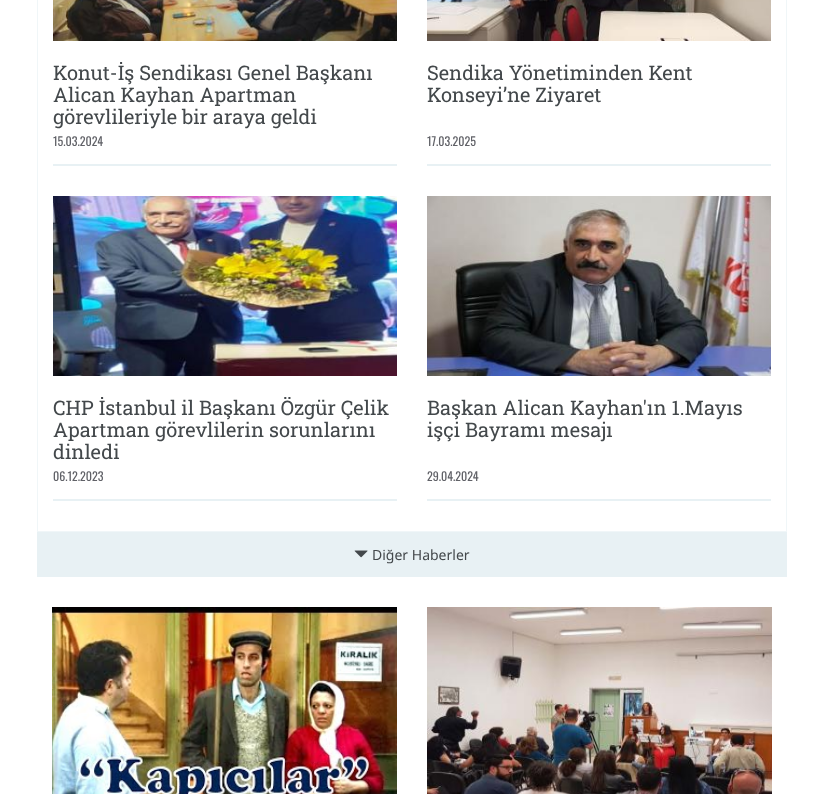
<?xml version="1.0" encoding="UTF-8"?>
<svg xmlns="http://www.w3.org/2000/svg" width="824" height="794">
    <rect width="100%" height="100%" fill="#FFFFFF"/>
    <rect x="37.5" y="-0.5" width="749" height="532" fill="none" stroke="#F0F6F8"/>
    <rect x="53" y="164" width="344" height="2" fill="#E8F1F4"/>
    <image x="53" y="0" width="344" height="41" href="img_01.png"/>
    <text font-family="Roboto Slab" font-size="20" fill="#43484B">
        <tspan x="53" y="80">Konut-İş Sendikası Genel Başkanı</tspan>
        <tspan x="53" y="102">Alican Kayhan Apartman</tspan>
        <tspan x="53" y="124">görevlileriyle bir araya geldi</tspan>
    </text>
    <text x="53" y="146" font-family="Oswald" font-size="12" fill="#606167">15.03.2024</text>
    <rect x="427" y="164" width="344" height="2" fill="#E8F1F4"/>
    <image x="427" y="0" width="344" height="41" href="img_02.png"/>
    <text font-family="Roboto Slab" font-size="20" fill="#43484B">
        <tspan x="427" y="80">Sendika Yönetiminden Kent</tspan>
        <tspan x="427" y="102">Konseyi’ne Ziyaret</tspan>
    </text>
    <text x="427" y="146" font-family="Oswald" font-size="12" fill="#606167">17.03.2025</text>
    <rect x="53" y="499" width="344" height="2" fill="#E8F1F4"/>
    <image x="53" y="196" width="344" height="180" href="img_03.png"/>
    <text font-family="Roboto Slab" font-size="20" fill="#43484B">
        <tspan x="53" y="415">CHP İstanbul il Başkanı Özgür Çelik</tspan>
        <tspan x="53" y="437">Apartman görevlilerin sorunlarını</tspan>
        <tspan x="53" y="459">dinledi</tspan>
    </text>
    <text x="53" y="481" font-family="Oswald" font-size="12" fill="#606167">06.12.2023</text>
    <rect x="427" y="499" width="344" height="2" fill="#E8F1F4"/>
    <image x="427" y="196" width="344" height="180" href="img_04.png"/>
    <text font-family="Roboto Slab" font-size="20" fill="#43484B">
        <tspan x="427" y="415">Başkan Alican Kayhan'ın 1.Mayıs</tspan>
        <tspan x="427" y="437">işçi Bayramı mesajı</tspan>
    </text>
    <text x="427" y="481" font-family="Oswald" font-size="12" fill="#606167">29.04.2024</text>
    <rect x="37" y="532" width="750" height="45" fill="#E8F1F4"/>
    <image x="354" y="550" width="14" height="8" href="img_05.png"/>
    <text x="372" y="560" font-family="Noto Sans" font-size="14" fill="#43484B">Diğer Haberler</text>
    <image x="52" y="607" width="345" height="187" href="img_06.png"/>
    <image x="427" y="607" width="345" height="187" href="img_07.png"/>
</svg>
